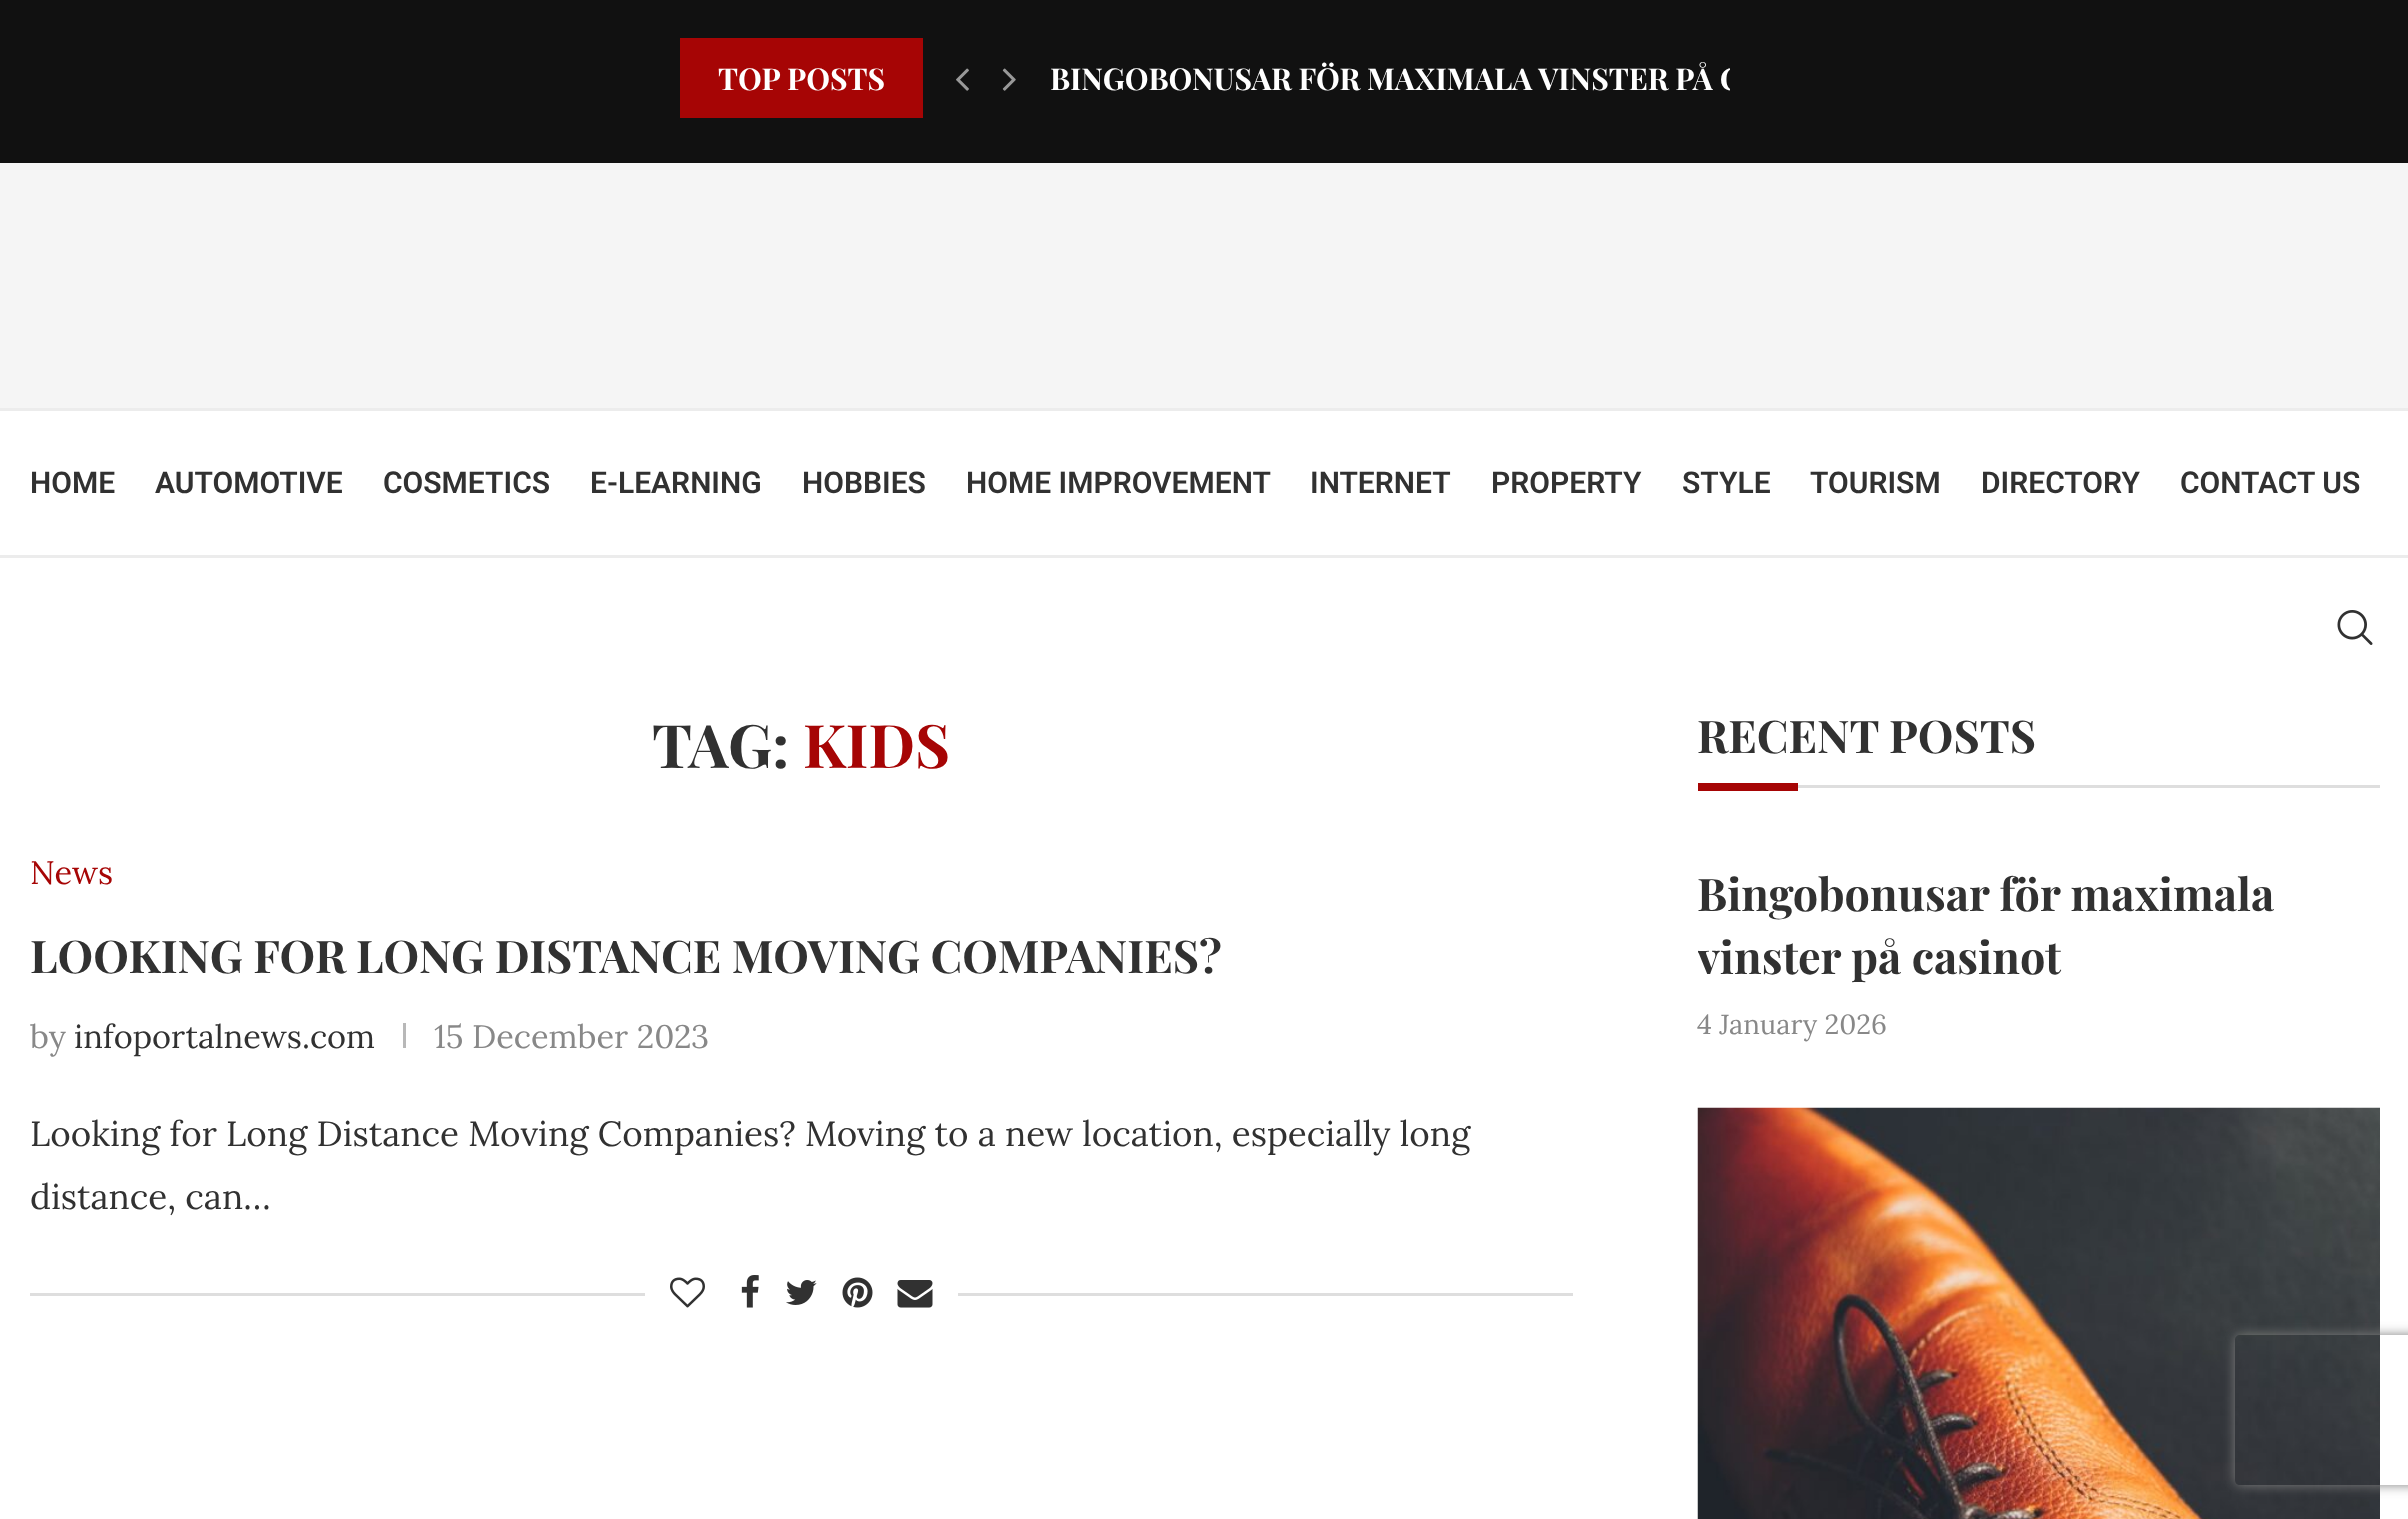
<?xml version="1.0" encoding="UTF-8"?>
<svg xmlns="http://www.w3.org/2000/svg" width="2408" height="1519">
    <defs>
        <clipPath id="clip1"><rect x="1050" y="38" width="680" height="80"/></clipPath>
        <clipPath id="clip2"><rect x="1698" y="863" width="682" height="180"/></clipPath>
        <clipPath id="clip3"><path d="M 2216 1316 H 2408 V 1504 H 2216 Z M 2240 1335 H 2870 C 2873 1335 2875 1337 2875 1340 V 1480 C 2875 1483 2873 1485 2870 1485 H 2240 C 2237 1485 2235 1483 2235 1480 V 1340 C 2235 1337 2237 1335 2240 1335 Z" clip-rule="evenodd"/></clipPath>
        <filter id="blur1" x="-50%" y="-200%" width="200%" height="500%"><feGaussianBlur stdDeviation="6"/></filter>
    </defs>
    <rect width="100%" height="100%" fill="#FFFFFF"/>
    <rect x="0" y="0" width="2408" height="163" fill="#111111"/>
    <rect x="680" y="38" width="243" height="80" fill="#A60505"/>
    <text x="718" y="90" font-family="Playfair Display" font-size="30" font-weight="700" fill="#FFFFFF">TOP POSTS</text>
    <image x="956" y="68" width="13" height="23" href="img_01.png"/>
    <image x="1002" y="68" width="14" height="23" href="img_02.png"/>
    <g clip-path="url(#clip1)">
        <text x="1050" y="90" font-family="Playfair Display" font-size="30" font-weight="700" fill="#FFFFFF">BINGOBONUSAR FÖR MAXIMALA VINSTER PÅ C</text>
    </g>
    <rect x="0" y="163" width="2408" height="245" fill="#F5F5F5"/>
    <rect x="0" y="408" width="2408" height="3" fill="#ECECEC"/>
    <rect x="0" y="555" width="2408" height="3" fill="#ECECEC"/>
    <text x="30" y="493" font-family="Roboto" font-size="30" font-weight="600" fill="#313131">HOME</text>
    <text x="155" y="493" font-family="Roboto" font-size="30" font-weight="600" fill="#313131">AUTOMOTIVE</text>
    <text x="383" y="493" font-family="Roboto" font-size="30" font-weight="600" fill="#313131">COSMETICS</text>
    <text x="590" y="493" font-family="Roboto" font-size="30" font-weight="600" fill="#313131">E-LEARNING</text>
    <text x="802" y="493" font-family="Roboto" font-size="30" font-weight="600" fill="#313131">HOBBIES</text>
    <text x="966" y="493" font-family="Roboto" font-size="30" font-weight="600" fill="#313131">HOME IMPROVEMENT</text>
    <text x="1310" y="493" font-family="Roboto" font-size="30" font-weight="600" fill="#313131">INTERNET</text>
    <text x="1491" y="493" font-family="Roboto" font-size="30" font-weight="600" fill="#313131">PROPERTY</text>
    <text x="1682" y="493" font-family="Roboto" font-size="30" font-weight="600" fill="#313131">STYLE</text>
    <text x="1810" y="493" font-family="Roboto" font-size="30" font-weight="600" fill="#313131">TOURISM</text>
    <text x="1981" y="493" font-family="Roboto" font-size="30" font-weight="600" fill="#313131">DIRECTORY</text>
    <text x="2180" y="493" font-family="Roboto" font-size="30" font-weight="600" fill="#313131">CONTACT US</text>
    <image x="2337" y="610" width="36" height="35" href="img_03.png"/>
    <text x="652" y="768" font-family="Playfair Display" font-size="60" font-weight="700" fill="#313131">TAG:</text>
    <text x="803" y="768" font-family="Playfair Display" font-size="60" font-weight="700" fill="#A60505">KIDS</text>
    <text x="30" y="884" font-family="Lora" font-size="32.5" fill="#A60505">News</text>
    <text x="30" y="973" font-family="Playfair Display" font-size="45" font-weight="700" fill="#313131">LOOKING FOR LONG DISTANCE MOVING COMPANIES?</text>
    <text x="30" y="1048" font-family="Lora" font-size="32.5" fill="#888888">by</text>
    <text x="74" y="1048" font-family="Lora" font-size="32.5" fill="#313131">infoportalnews.com</text>
    <rect x="403" y="1023" width="3" height="25" fill="#B8B8B8"/>
    <text x="434" y="1048" font-family="Lora" font-size="32.5" fill="#888888">15 December 2023</text>
    <text font-family="Lora" font-size="35" fill="#313131">
        <tspan x="30" y="1146">Looking for Long Distance Moving Companies? Moving to a new location, especially long</tspan>
        <tspan x="30" y="1209">distance, can…</tspan>
    </text>
    <rect x="30" y="1293" width="1543" height="3" fill="#DEDEDE"/>
    <rect x="645" y="1293" width="313" height="3" fill="#FFFFFF"/>
    <image x="670" y="1277" width="35" height="31" href="img_04.png"/>
    <image x="741" y="1275" width="18" height="33" href="img_05.png"/>
    <image x="786" y="1280" width="31" height="25" href="img_06.png"/>
    <image x="842" y="1277" width="31" height="31" href="img_07.png"/>
    <image x="897" y="1280" width="36" height="28" href="img_08.png"/>
    <rect x="1798" y="785" width="582" height="3" fill="#DEDEDE"/>
    <text x="1697" y="753" font-family="Playfair Display" font-size="45" font-weight="700" fill="#313131">RECENT POSTS</text>
    <rect x="1698" y="783" width="100" height="8" fill="#A60505"/>
    <text x="1697" y="911" font-family="Playfair Display" font-size="45" font-weight="700" fill="#313131">Bingobonusar för maximala</text>
    <g clip-path="url(#clip2)">
        <text x="1697" y="974" font-family="Playfair Display" font-size="45" font-weight="700" fill="#313131">vinster på casinot</text>
    </g>
    <text x="1697" y="1034" font-family="Lora" font-size="27.5" fill="#888888">4 January 2026</text>
    <image x="1697" y="1107" width="683" height="412" href="img_09.png"/>
    <g clip-path="url(#clip3)">
        <rect x="2235" y="1335" width="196" height="150" rx="5" fill="#808080" filter="url(#blur1)"/>
    </g>
</svg>
